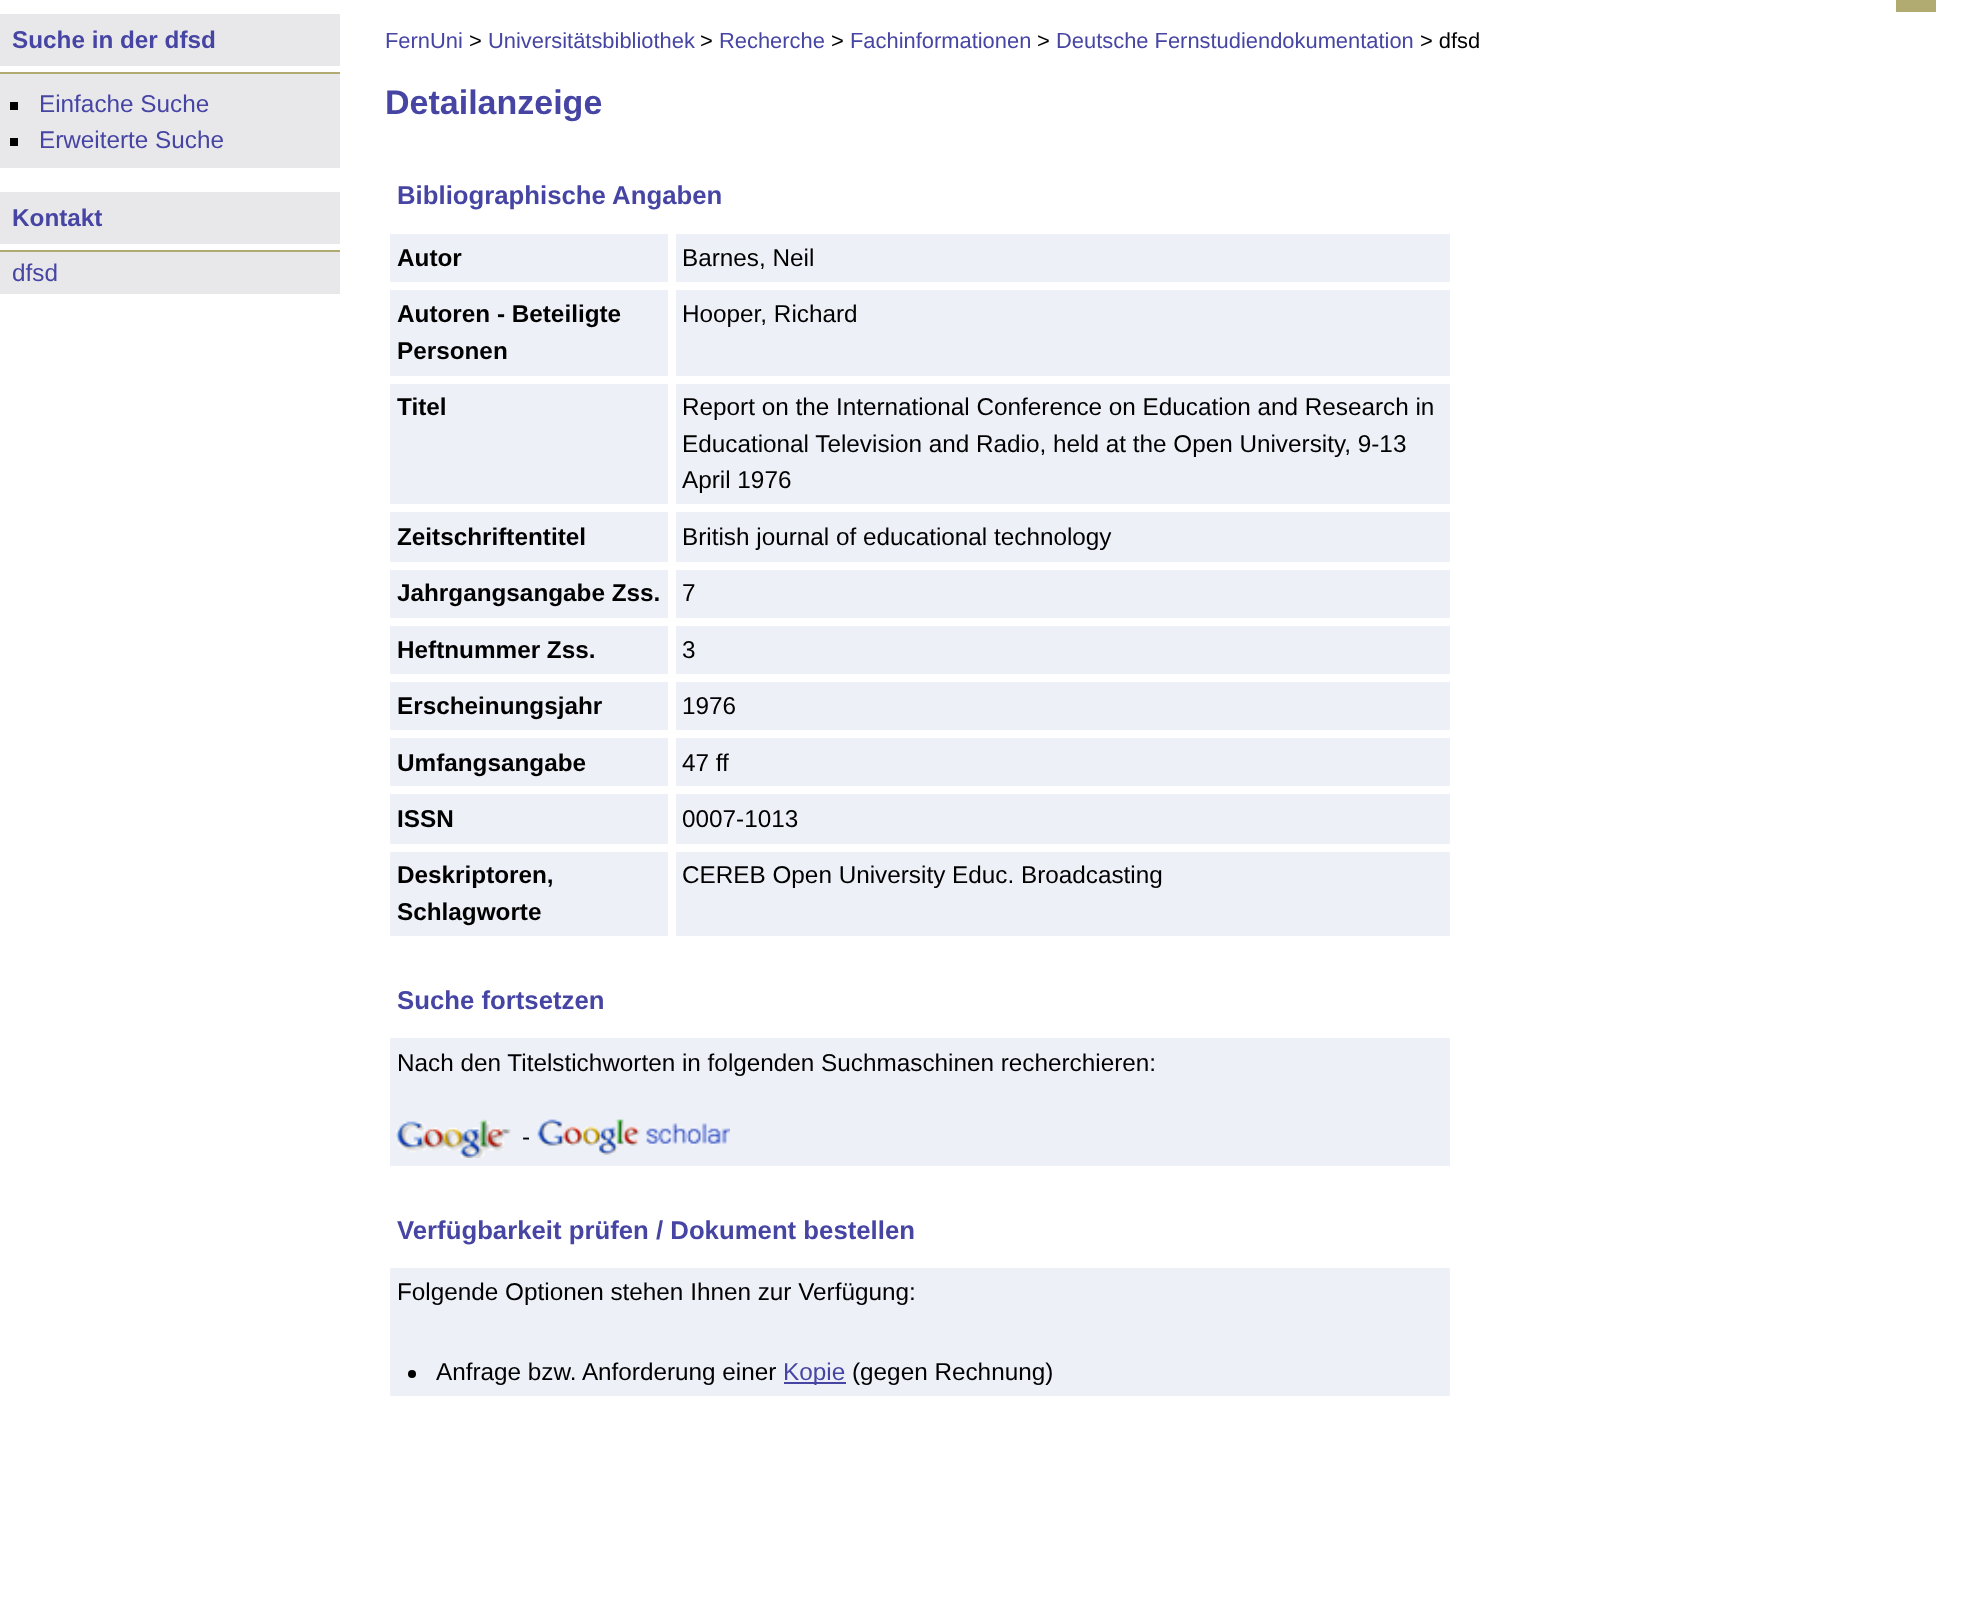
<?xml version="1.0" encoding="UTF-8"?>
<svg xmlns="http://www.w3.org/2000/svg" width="1965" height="1611">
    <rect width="100%" height="100%" fill="#FFFFFF"/>
    <rect x="1896" y="0" width="40" height="12" fill="#B1AB72"/>
    <rect x="0" y="14" width="340" height="52" fill="#E8E8EA"/>
    <text x="12" y="48" font-family="Liberation Sans" font-size="24.3" font-weight="700" fill="#4645A4">Suche in der dfsd</text>
    <rect x="0" y="74" width="340" height="94" fill="#E8E8EA"/>
    <rect x="0" y="72" width="340" height="2" fill="#B1AB72"/>
    <rect x="10" y="102" width="8" height="8" fill="#000000"/>
    <text x="39" y="112" font-family="Liberation Sans" font-size="24.3" fill="#4645A4">Einfache Suche</text>
    <rect x="10" y="138" width="8" height="8" fill="#000000"/>
    <text x="39" y="148" font-family="Liberation Sans" font-size="24.3" fill="#4645A4">Erweiterte Suche</text>
    <rect x="0" y="192" width="340" height="52" fill="#E8E8EA"/>
    <text x="12" y="226" font-family="Liberation Sans" font-size="24.3" font-weight="700" fill="#4645A4">Kontakt</text>
    <rect x="0" y="252" width="340" height="42" fill="#E8E8EA"/>
    <rect x="0" y="250" width="340" height="2" fill="#B1AB72"/>
    <text x="12" y="281" font-family="Liberation Sans" font-size="24.3" fill="#4645A4">dfsd</text>
    <text x="385" y="48" font-family="Liberation Sans" font-size="21.9" fill="#4645A4">FernUni</text>
    <text x="469" y="48" font-family="Liberation Sans" font-size="21.9" fill="#000000">&gt;</text>
    <text x="488" y="48" font-family="Liberation Sans" font-size="21.9" fill="#4645A4">Universitätsbibliothek</text>
    <text x="700" y="48" font-family="Liberation Sans" font-size="21.9" fill="#000000">&gt;</text>
    <text x="719" y="48" font-family="Liberation Sans" font-size="21.9" fill="#4645A4">Recherche</text>
    <text x="831" y="48" font-family="Liberation Sans" font-size="21.9" fill="#000000">&gt;</text>
    <text x="850" y="48" font-family="Liberation Sans" font-size="21.9" fill="#4645A4">Fachinformationen</text>
    <text x="1037" y="48" font-family="Liberation Sans" font-size="21.9" fill="#000000">&gt;</text>
    <text x="1056" y="48" font-family="Liberation Sans" font-size="21.9" fill="#4645A4">Deutsche Fernstudiendokumentation</text>
    <text x="1420" y="48" font-family="Liberation Sans" font-size="21.9" fill="#000000">&gt; dfsd</text>
    <text x="385" y="114" font-family="Liberation Sans" font-size="34" font-weight="700" fill="#4645A4">Detailanzeige</text>
    <text x="397" y="204" font-family="Liberation Sans" font-size="25.75" font-weight="700" fill="#4645A4">Bibliographische Angaben</text>
    <rect x="390" y="234" width="278" height="48" fill="#EEF0F8"/>
    <text x="397" y="266" font-family="Liberation Sans" font-size="24.3" font-weight="700" fill="#000000">Autor</text>
    <rect x="676" y="234" width="774" height="48" fill="#EEF0F8"/>
    <text x="682" y="266" font-family="Liberation Sans" font-size="24.3" fill="#000000">Barnes, Neil</text>
    <rect x="390" y="290" width="278" height="86" fill="#EEF0F8"/>
    <text font-family="Liberation Sans" font-size="24.3" font-weight="700" fill="#000000">
        <tspan x="397" y="322">Autoren - Beteiligte</tspan>
        <tspan x="397" y="359">Personen</tspan>
    </text>
    <rect x="676" y="290" width="774" height="86" fill="#EEF0F8"/>
    <text x="682" y="322" font-family="Liberation Sans" font-size="24.3" fill="#000000">Hooper, Richard</text>
    <rect x="390" y="384" width="278" height="120" fill="#EEF0F8"/>
    <text x="397" y="415" font-family="Liberation Sans" font-size="24.3" font-weight="700" fill="#000000">Titel</text>
    <rect x="676" y="384" width="774" height="120" fill="#EEF0F8"/>
    <text font-family="Liberation Sans" font-size="24.3" fill="#000000">
        <tspan x="682" y="415">Report on the International Conference on Education and Research in</tspan>
        <tspan x="682" y="452">Educational Television and Radio, held at the Open University, 9-13</tspan>
        <tspan x="682" y="488">April 1976</tspan>
    </text>
    <rect x="390" y="512" width="278" height="50" fill="#EEF0F8"/>
    <text x="397" y="545" font-family="Liberation Sans" font-size="24.3" font-weight="700" fill="#000000">Zeitschriftentitel</text>
    <rect x="676" y="512" width="774" height="50" fill="#EEF0F8"/>
    <text x="682" y="545" font-family="Liberation Sans" font-size="24.3" fill="#000000">British journal of educational technology</text>
    <rect x="390" y="570" width="278" height="48" fill="#EEF0F8"/>
    <text x="397" y="601" font-family="Liberation Sans" font-size="24.3" font-weight="700" fill="#000000">Jahrgangsangabe Zss.</text>
    <rect x="676" y="570" width="774" height="48" fill="#EEF0F8"/>
    <text x="682" y="601" font-family="Liberation Sans" font-size="24.3" fill="#000000">7</text>
    <rect x="390" y="626" width="278" height="48" fill="#EEF0F8"/>
    <text x="397" y="658" font-family="Liberation Sans" font-size="24.3" font-weight="700" fill="#000000">Heftnummer Zss.</text>
    <rect x="676" y="626" width="774" height="48" fill="#EEF0F8"/>
    <text x="682" y="658" font-family="Liberation Sans" font-size="24.3" fill="#000000">3</text>
    <rect x="390" y="682" width="278" height="48" fill="#EEF0F8"/>
    <text x="397" y="714" font-family="Liberation Sans" font-size="24.3" font-weight="700" fill="#000000">Erscheinungsjahr</text>
    <rect x="676" y="682" width="774" height="48" fill="#EEF0F8"/>
    <text x="682" y="714" font-family="Liberation Sans" font-size="24.3" fill="#000000">1976</text>
    <rect x="390" y="738" width="278" height="48" fill="#EEF0F8"/>
    <text x="397" y="771" font-family="Liberation Sans" font-size="24.3" font-weight="700" fill="#000000">Umfangsangabe</text>
    <rect x="676" y="738" width="774" height="48" fill="#EEF0F8"/>
    <text x="682" y="771" font-family="Liberation Sans" font-size="24.3" fill="#000000">47 ff</text>
    <rect x="390" y="794" width="278" height="50" fill="#EEF0F8"/>
    <text x="397" y="827" font-family="Liberation Sans" font-size="24.3" font-weight="700" fill="#000000">ISSN</text>
    <rect x="676" y="794" width="774" height="50" fill="#EEF0F8"/>
    <text x="682" y="827" font-family="Liberation Sans" font-size="24.3" fill="#000000">0007-1013</text>
    <rect x="390" y="852" width="278" height="84" fill="#EEF0F8"/>
    <text font-family="Liberation Sans" font-size="24.3" font-weight="700" fill="#000000">
        <tspan x="397" y="883">Deskriptoren,</tspan>
        <tspan x="397" y="920">Schlagworte</tspan>
    </text>
    <rect x="676" y="852" width="774" height="84" fill="#EEF0F8"/>
    <text x="682" y="883" font-family="Liberation Sans" font-size="24.3" fill="#000000">CEREB Open University Educ. Broadcasting</text>
    <text x="397" y="1009" font-family="Liberation Sans" font-size="25.75" font-weight="700" fill="#4645A4">Suche fortsetzen</text>
    <rect x="390" y="1038" width="1060" height="128" fill="#EEF0F8"/>
    <text x="397" y="1071" font-family="Liberation Sans" font-size="24.3" fill="#000000">Nach den Titelstichworten in folgenden Suchmaschinen recherchieren:</text>
    <image x="396" y="1119" width="115" height="39" href="img_01.png"/>
    <text x="522" y="1145" font-family="Liberation Sans" font-size="24.3" fill="#000000">-</text>
    <image x="537" y="1119" width="193" height="36" href="img_02.png"/>
    <text x="397" y="1239" font-family="Liberation Sans" font-size="25.75" font-weight="700" fill="#4645A4">Verfügbarkeit prüfen / Dokument bestellen</text>
    <rect x="390" y="1268" width="1060" height="128" fill="#EEF0F8"/>
    <text x="397" y="1300" font-family="Liberation Sans" font-size="24.3" fill="#000000">Folgende Optionen stehen Ihnen zur Verfügung:</text>
    <circle cx="412" cy="1374" r="4" fill="#000000"/>
    <text x="436" y="1380" font-family="Liberation Sans" font-size="24.3" fill="#000000">Anfrage bzw. Anforderung einer</text>
    <rect x="784" y="1382" width="62" height="2" fill="#4645A4"/>
    <text x="783" y="1380" font-family="Liberation Sans" font-size="24.3" fill="#4645A4">Kopie</text>
    <text x="852" y="1380" font-family="Liberation Sans" font-size="24.3" fill="#000000">(gegen Rechnung)</text>
</svg>
